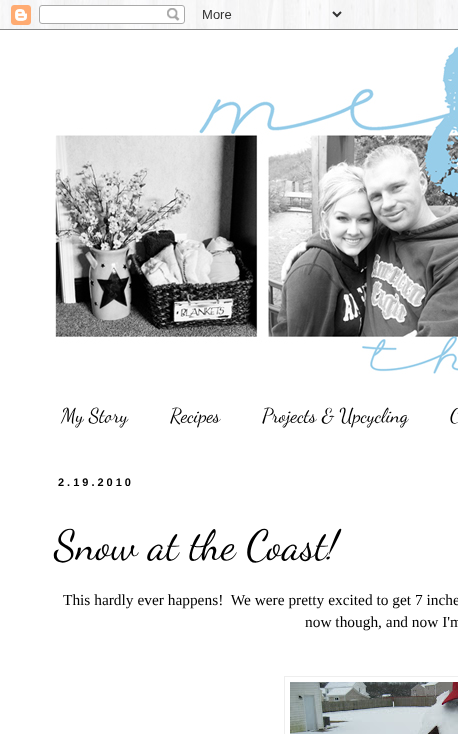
<?xml version="1.0" encoding="UTF-8"?>
<svg xmlns="http://www.w3.org/2000/svg" width="458" height="734">
    <rect width="100%" height="100%" fill="#FFFFFF"/>
    <image x="0" y="0" width="458" height="29" href="img_01.png"/>
    <image x="0" y="0" width="458" height="30" href="img_02.png"/>
    <image x="55" y="46" width="403" height="328" href="img_03.png"/>
    <text x="61" y="422" font-family="Dancing Script" font-size="20" fill="#000000">My Story</text>
    <text x="170" y="422" font-family="Dancing Script" font-size="20" fill="#000000">Recipes</text>
    <text x="262" y="422" font-family="Dancing Script" font-size="20" fill="#000000">Projects &amp; Upcycling</text>
    <text x="450" y="422" font-family="Dancing Script" font-size="20" fill="#000000">C</text>
    <text x="58" y="486" font-family="Liberation Sans" font-size="11" font-weight="700" letter-spacing="3" fill="#000000">2.19.2010</text>
    <text x="54" y="559" font-family="Dancing Script" font-size="42" fill="#000000">Snow at the Coast!</text>
    <text x="63" y="605" font-family="Liberation Serif" font-size="15.4" fill="#000000" xml:space="preserve">This hardly ever happens!  We were pretty excited to get 7 inche</text>
    <text x="305" y="627" font-family="Liberation Serif" font-size="15.4" fill="#000000">now though, and now I'm</text>
    <rect x="284.5" y="676.5" width="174" height="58" fill="none" stroke="#EEEEEE"/>
    <image x="290" y="682" width="168" height="52" href="img_04.png"/>
</svg>
